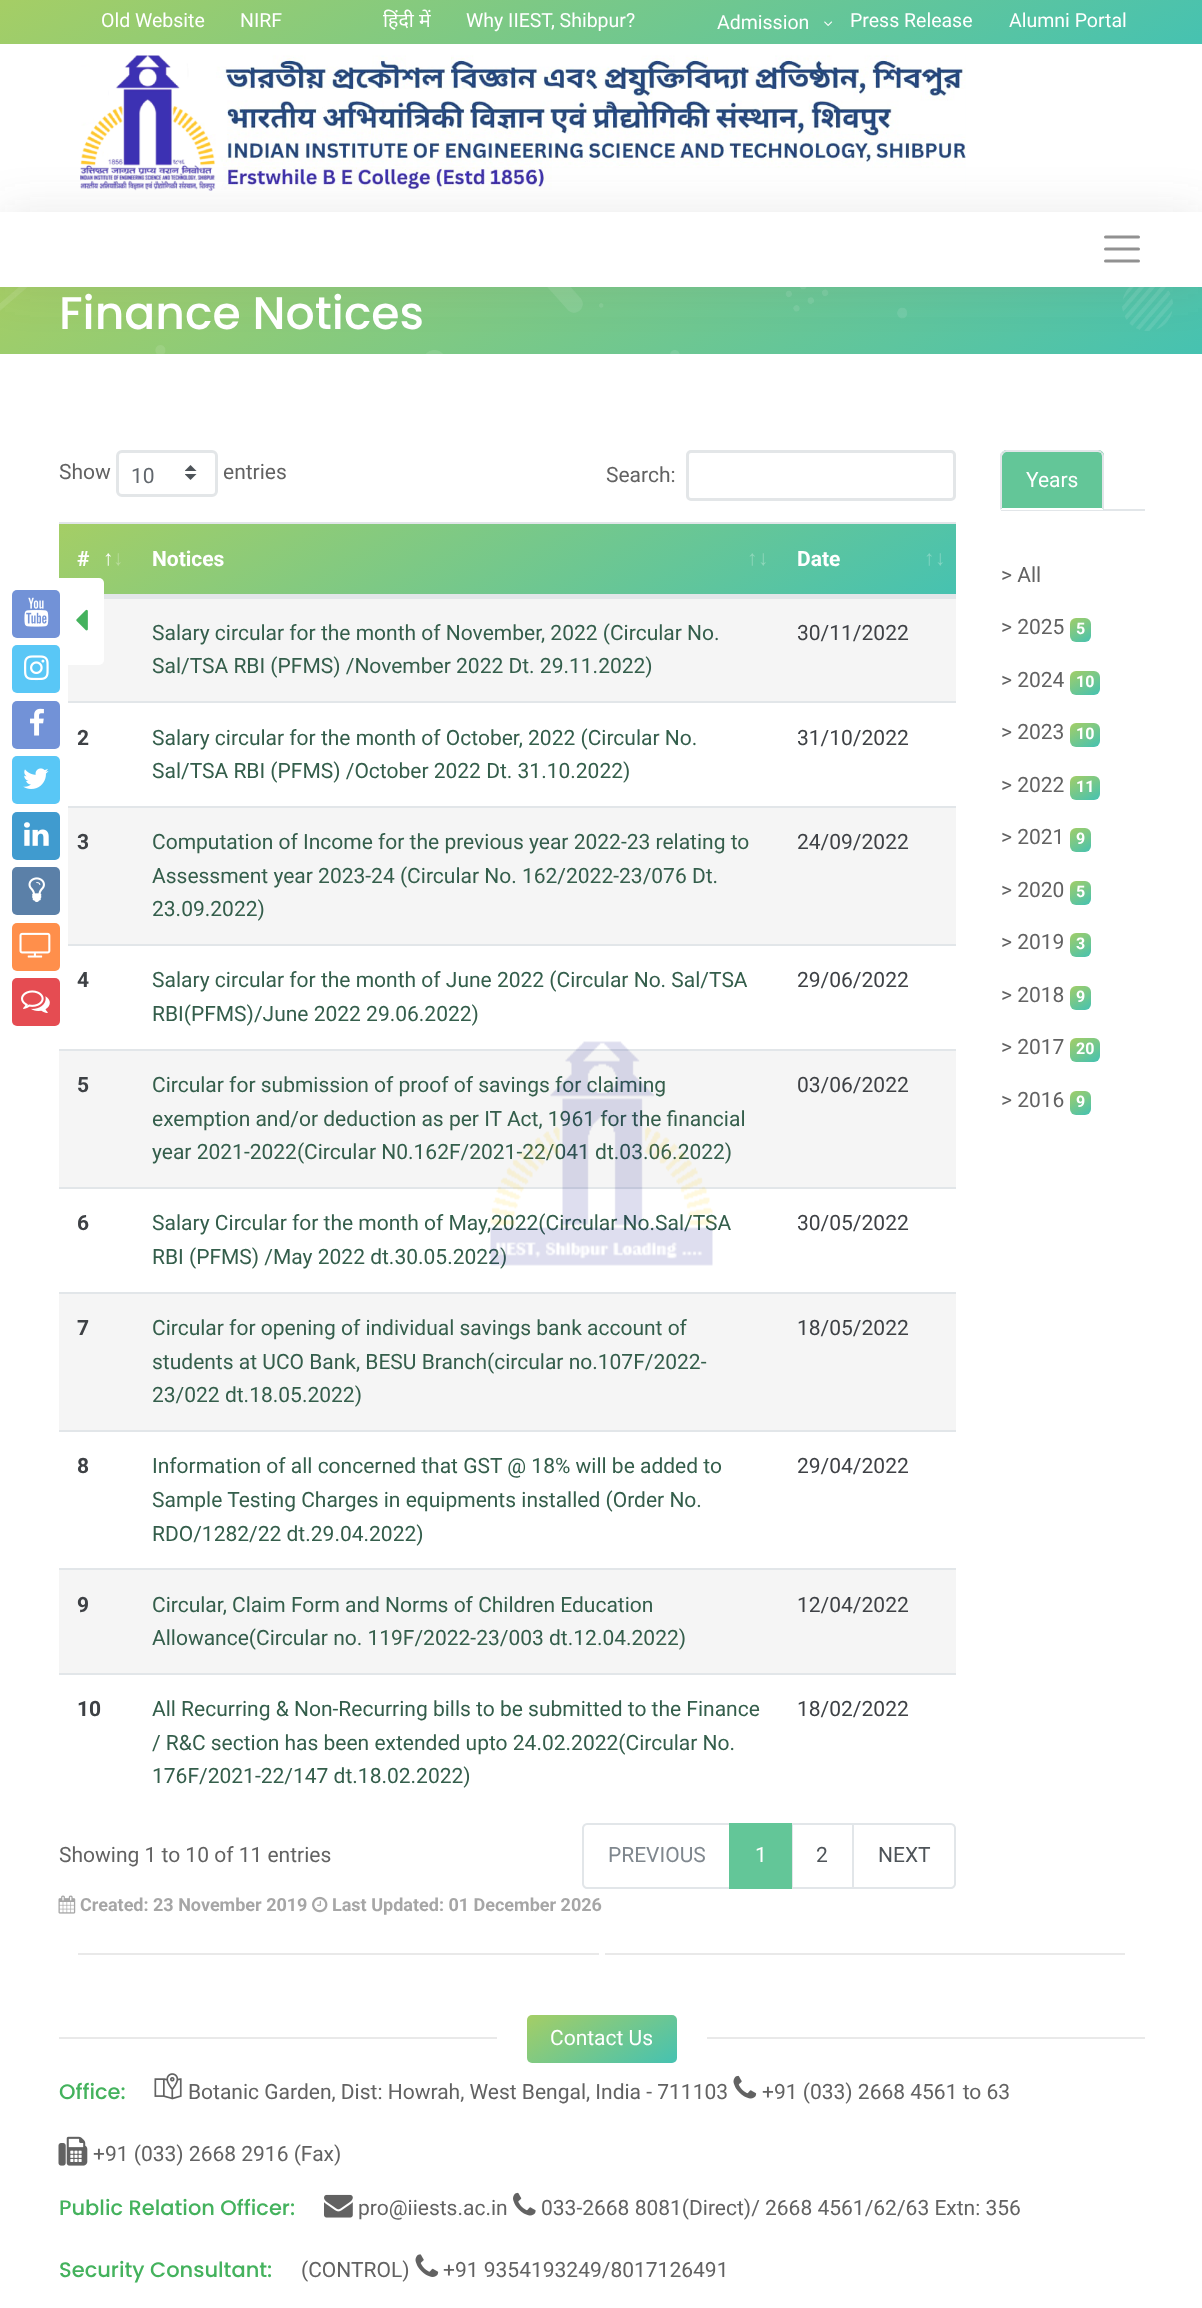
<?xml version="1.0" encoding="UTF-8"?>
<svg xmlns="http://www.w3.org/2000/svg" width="1202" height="2308">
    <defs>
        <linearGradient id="g1" gradientUnits="userSpaceOnUse" x1="442" y1="-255" x2="761" y2="299"><stop offset="0" stop-color="#A5CE65"/><stop offset="1" stop-color="#46C2B1"/></linearGradient>
        <linearGradient id="g2" gradientUnits="userSpaceOnUse" x1="437" y1="34" x2="766" y2="606"><stop offset="0" stop-color="#A5CE65"/><stop offset="1" stop-color="#46C2B1"/></linearGradient>
        <filter id="blur1" x="-50%" y="-200%" width="200%" height="500%"><feGaussianBlur stdDeviation="22.5"/></filter>
        <linearGradient id="g3" gradientUnits="userSpaceOnUse" x1="379" y1="337" x2="635" y2="782"><stop offset="0" stop-color="#A5CE65"/><stop offset="1" stop-color="#46C2B1"/></linearGradient>
        <linearGradient id="g4" gradientUnits="userSpaceOnUse" x1="1072" y1="616" x2="1088" y2="644"><stop offset="0" stop-color="#A5CE65"/><stop offset="1" stop-color="#46C2B1"/></linearGradient>
        <linearGradient id="g5" gradientUnits="userSpaceOnUse" x1="1076" y1="667" x2="1093" y2="698"><stop offset="0" stop-color="#A5CE65"/><stop offset="1" stop-color="#46C2B1"/></linearGradient>
        <linearGradient id="g6" gradientUnits="userSpaceOnUse" x1="1076" y1="720" x2="1093" y2="750"><stop offset="0" stop-color="#A5CE65"/><stop offset="1" stop-color="#46C2B1"/></linearGradient>
        <linearGradient id="g7" gradientUnits="userSpaceOnUse" x1="1076" y1="772" x2="1093" y2="803"><stop offset="0" stop-color="#A5CE65"/><stop offset="1" stop-color="#46C2B1"/></linearGradient>
        <linearGradient id="g8" gradientUnits="userSpaceOnUse" x1="1072" y1="826" x2="1088" y2="854"><stop offset="0" stop-color="#A5CE65"/><stop offset="1" stop-color="#46C2B1"/></linearGradient>
        <linearGradient id="g9" gradientUnits="userSpaceOnUse" x1="1072" y1="879" x2="1088" y2="906"><stop offset="0" stop-color="#A5CE65"/><stop offset="1" stop-color="#46C2B1"/></linearGradient>
        <linearGradient id="g10" gradientUnits="userSpaceOnUse" x1="1072" y1="931" x2="1088" y2="959"><stop offset="0" stop-color="#A5CE65"/><stop offset="1" stop-color="#46C2B1"/></linearGradient>
        <linearGradient id="g11" gradientUnits="userSpaceOnUse" x1="1072" y1="984" x2="1088" y2="1011"><stop offset="0" stop-color="#A5CE65"/><stop offset="1" stop-color="#46C2B1"/></linearGradient>
        <linearGradient id="g12" gradientUnits="userSpaceOnUse" x1="1076" y1="1035" x2="1093" y2="1065"><stop offset="0" stop-color="#A5CE65"/><stop offset="1" stop-color="#46C2B1"/></linearGradient>
        <linearGradient id="g13" gradientUnits="userSpaceOnUse" x1="1072" y1="1089" x2="1088" y2="1116"><stop offset="0" stop-color="#A5CE65"/><stop offset="1" stop-color="#46C2B1"/></linearGradient>
        <linearGradient id="g14" gradientUnits="userSpaceOnUse" x1="572" y1="1988" x2="631" y2="2089"><stop offset="0" stop-color="#A5CE65"/><stop offset="1" stop-color="#46C2B1"/></linearGradient>
    </defs>
    <rect width="100%" height="100%" fill="#FFFFFF"/>
    <rect x="0" y="0" width="1202" height="44" fill="url(#g1)"/>
    <text x="101" y="27" font-family="Roboto" font-size="19.5" fill="#FFFFFF">Old Website</text>
    <text x="240" y="27" font-family="Roboto" font-size="19.5" fill="#FFFFFF">NIRF</text>
    <text x="383" y="27" font-family="Noto Sans" font-size="19.5" fill="#FFFFFF">हिंदी में</text>
    <text x="466" y="27" font-family="Roboto" font-size="19.5" fill="#FFFFFF">Why IIEST, Shibpur?</text>
    <text x="717" y="29" font-family="Roboto" font-size="19.5" fill="#FFFFFF">Admission</text>
    <image x="824" y="21" width="9" height="5" href="img_01.png"/>
    <text x="850" y="27" font-family="Roboto" font-size="19.5" fill="#FFFFFF">Press Release</text>
    <text x="1009" y="27" font-family="Roboto" font-size="19.5" fill="#FFFFFF">Alumni Portal</text>
    <image x="80" y="55" width="886" height="136" href="img_02.png"/>
    <rect x="0" y="287" width="1202" height="67" fill="url(#g2)"/>
    <image x="0" y="287" width="1173" height="67" href="img_03.png"/>
    <rect x="0" y="212" width="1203" height="75" fill="#696E72" fill-opacity="0.15" filter="url(#blur1)"/>
    <rect x="0" y="212" width="1202" height="75" fill="#FFFFFF"/>
    <path d="M 1105.5 237 H 1138.5 M 1105.5 249 H 1138.5 M 1105.5 261 H 1138.5" fill="none" stroke="#919191" stroke-width="3" stroke-linecap="round"/>
    <text x="59" y="329" font-family="Poppins" font-size="45.75" font-weight="500" fill="#FFFFFF">Finance Notices</text>
    <rect x="59" y="524" width="897" height="70" fill="url(#g3)"/>
    <rect x="68" y="599" width="888" height="102" fill="#F5F5F5"/>
    <rect x="60" y="578" width="44" height="87" rx="5" fill="#FFFFFF"/>
    <rect x="59" y="578" width="6" height="16" fill="#FFFFFF"/>
    <rect x="12" y="590" width="48" height="48" rx="5" fill="#7292D7"/>
    <image x="24" y="597" width="25" height="30" href="img_04.png"/>
    <rect x="12" y="645" width="48" height="48" rx="5" fill="#59C7F6"/>
    <image x="24" y="655" width="25" height="26" href="img_05.png"/>
    <rect x="12" y="701" width="48" height="48" rx="5" fill="#7292D7"/>
    <image x="30" y="708" width="14" height="28" href="img_06.png"/>
    <rect x="12" y="756" width="48" height="48" rx="5" fill="#59C7F6"/>
    <image x="23" y="768" width="26" height="21" href="img_07.png"/>
    <rect x="12" y="812" width="48" height="48" rx="5" fill="#409BCF"/>
    <image x="24" y="822" width="25" height="24" href="img_08.png"/>
    <rect x="12" y="867" width="48" height="48" rx="5" fill="#5B80A8"/>
    <image x="28" y="877" width="17" height="26" href="img_09.png"/>
    <rect x="12" y="923" width="48" height="48" rx="5" fill="#FF8F4B"/>
    <image x="19" y="932" width="32" height="26" href="img_10.png"/>
    <rect x="12" y="978" width="48" height="48" rx="5" fill="#E54C52"/>
    <image x="21" y="990" width="29" height="23" href="img_11.png"/>
    <image x="76" y="609" width="12" height="22" href="img_12.png"/>
    <text x="59" y="479" font-family="Roboto" font-size="21" fill="#626262">Show</text>
    <image x="185" y="465" width="12" height="15" href="img_13.png"/>
    <rect x="117.5" y="451.5" width="99" height="44" rx="4.5" fill="none" stroke="#E3E6E8" stroke-width="3"/>
    <text x="131" y="483" font-family="Roboto" font-size="21" fill="#61676D">10</text>
    <text x="223" y="479" font-family="Roboto" font-size="21" fill="#626262">entries</text>
    <text x="606" y="482" font-family="Roboto" font-size="21" fill="#626262">Search:</text>
    <rect x="687.5" y="451.5" width="267" height="48" rx="3.5" fill="none" stroke="#E3E6E8" stroke-width="3"/>
    <rect x="59" y="522" width="897" height="2" fill="#E2E6E9"/>
    <rect x="104" y="594" width="852" height="3" fill="#E2E6E9"/>
    <text x="77" y="566" font-family="Roboto" font-size="21" font-weight="700" fill="#FFFFFF">#</text>
    <text x="103" y="565" font-family="Liberation Sans" font-size="21" font-weight="700" fill="#FFFFFF">↑</text>
    <text x="113" y="565" font-family="Liberation Sans" font-size="21" font-weight="700" fill="#B8DB9A">↓</text>
    <text x="152" y="566" font-family="Roboto" font-size="21" font-weight="700" fill="#FFFFFF">Notices</text>
    <text x="747" y="565" font-family="Liberation Sans" font-size="21" font-weight="700" fill="#8FD7BA">↑</text>
    <text x="758" y="565" font-family="Liberation Sans" font-size="21" font-weight="700" fill="#8FD7BA">↓</text>
    <text x="797" y="566" font-family="Roboto" font-size="21" font-weight="700" fill="#FFFFFF">Date</text>
    <text x="924" y="565" font-family="Liberation Sans" font-size="21" font-weight="700" fill="#83D5C3">↑</text>
    <text x="935" y="565" font-family="Liberation Sans" font-size="21" font-weight="700" fill="#83D5C3">↓</text>
    <rect x="104" y="597" width="852" height="2" fill="#E2E6E9"/>
    <text font-family="Roboto" font-size="21" fill="#345E4B">
        <tspan x="152" y="640">Salary circular for the month of November, 2022 (Circular No.</tspan>
        <tspan x="152" y="673">Sal/TSA RBI (PFMS) /November 2022 Dt. 29.11.2022)</tspan>
    </text>
    <text x="797" y="640" font-family="Roboto" font-size="21" fill="#3E4145">30/11/2022</text>
    <rect x="68" y="701" width="888" height="2" fill="#E2E6E9"/>
    <text x="77" y="745" font-family="Roboto" font-size="21" font-weight="700" fill="#3E4145">2</text>
    <text font-family="Roboto" font-size="21" fill="#345E4B">
        <tspan x="152" y="745">Salary circular for the month of October, 2022 (Circular No.</tspan>
        <tspan x="152" y="778">Sal/TSA RBI (PFMS) /October 2022 Dt. 31.10.2022)</tspan>
    </text>
    <text x="797" y="745" font-family="Roboto" font-size="21" fill="#3E4145">31/10/2022</text>
    <rect x="68" y="808" width="888" height="136" fill="#F5F5F5"/>
    <rect x="68" y="806" width="888" height="2" fill="#E2E6E9"/>
    <text x="77" y="849" font-family="Roboto" font-size="21" font-weight="700" fill="#3E4145">3</text>
    <text font-family="Roboto" font-size="21" fill="#345E4B">
        <tspan x="152" y="849">Computation of Income for the previous year 2022-23 relating to</tspan>
        <tspan x="152" y="883">Assessment year 2023-24 (Circular No. 162/2022-23/076 Dt.</tspan>
        <tspan x="152" y="916">23.09.2022)</tspan>
    </text>
    <text x="797" y="849" font-family="Roboto" font-size="21" fill="#3E4145">24/09/2022</text>
    <rect x="68" y="944" width="888" height="2" fill="#E2E6E9"/>
    <text x="77" y="987" font-family="Roboto" font-size="21" font-weight="700" fill="#3E4145">4</text>
    <text font-family="Roboto" font-size="21" fill="#345E4B">
        <tspan x="152" y="987">Salary circular for the month of June 2022 (Circular No. Sal/TSA</tspan>
        <tspan x="152" y="1021">RBI(PFMS)/June 2022 29.06.2022)</tspan>
    </text>
    <text x="797" y="987" font-family="Roboto" font-size="21" fill="#3E4145">29/06/2022</text>
    <rect x="59" y="1051" width="897" height="136" fill="#F5F5F5"/>
    <rect x="59" y="1049" width="897" height="2" fill="#E2E6E9"/>
    <text x="77" y="1092" font-family="Roboto" font-size="21" font-weight="700" fill="#3E4145">5</text>
    <text font-family="Roboto" font-size="21" fill="#345E4B">
        <tspan x="152" y="1092">Circular for submission of proof of savings for claiming</tspan>
        <tspan x="152" y="1126">exemption and/or deduction as per IT Act, 1961 for the financial</tspan>
        <tspan x="152" y="1159">year 2021-2022(Circular N0.162F/2021-22/041 dt.03.06.2022)</tspan>
    </text>
    <text x="797" y="1092" font-family="Roboto" font-size="21" fill="#3E4145">03/06/2022</text>
    <rect x="59" y="1187" width="897" height="2" fill="#E2E6E9"/>
    <text x="77" y="1230" font-family="Roboto" font-size="21" font-weight="700" fill="#3E4145">6</text>
    <text font-family="Roboto" font-size="21" fill="#345E4B">
        <tspan x="152" y="1230">Salary Circular for the month of May,2022(Circular No.Sal/TSA</tspan>
        <tspan x="152" y="1264">RBI (PFMS) /May 2022 dt.30.05.2022)</tspan>
    </text>
    <text x="797" y="1230" font-family="Roboto" font-size="21" fill="#3E4145">30/05/2022</text>
    <rect x="59" y="1294" width="897" height="136" fill="#F5F5F5"/>
    <rect x="59" y="1292" width="897" height="2" fill="#E2E6E9"/>
    <text x="77" y="1335" font-family="Roboto" font-size="21" font-weight="700" fill="#3E4145">7</text>
    <text font-family="Roboto" font-size="21" fill="#345E4B">
        <tspan x="152" y="1335">Circular for opening of individual savings bank account of</tspan>
        <tspan x="152" y="1369">students at UCO Bank, BESU Branch(circular no.107F/2022-</tspan>
        <tspan x="152" y="1402">23/022 dt.18.05.2022)</tspan>
    </text>
    <text x="797" y="1335" font-family="Roboto" font-size="21" fill="#3E4145">18/05/2022</text>
    <rect x="59" y="1430" width="897" height="2" fill="#E2E6E9"/>
    <text x="77" y="1473" font-family="Roboto" font-size="21" font-weight="700" fill="#3E4145">8</text>
    <text font-family="Roboto" font-size="21" fill="#345E4B">
        <tspan x="152" y="1473">Information of all concerned that GST @ 18% will be added to</tspan>
        <tspan x="152" y="1507">Sample Testing Charges in equipments installed (Order No.</tspan>
        <tspan x="152" y="1541">RDO/1282/22 dt.29.04.2022)</tspan>
    </text>
    <text x="797" y="1473" font-family="Roboto" font-size="21" fill="#3E4145">29/04/2022</text>
    <rect x="59" y="1570" width="897" height="103" fill="#F5F5F5"/>
    <rect x="59" y="1568" width="897" height="2" fill="#E2E6E9"/>
    <text x="77" y="1612" font-family="Roboto" font-size="21" font-weight="700" fill="#3E4145">9</text>
    <text font-family="Roboto" font-size="21" fill="#345E4B">
        <tspan x="152" y="1612">Circular, Claim Form and Norms of Children Education</tspan>
        <tspan x="152" y="1645">Allowance(Circular no. 119F/2022-23/003 dt.12.04.2022)</tspan>
    </text>
    <text x="797" y="1612" font-family="Roboto" font-size="21" fill="#3E4145">12/04/2022</text>
    <rect x="59" y="1673" width="897" height="2" fill="#E2E6E9"/>
    <text x="77" y="1716" font-family="Roboto" font-size="21" font-weight="700" fill="#3E4145">10</text>
    <text font-family="Roboto" font-size="21" fill="#345E4B">
        <tspan x="152" y="1716">All Recurring &amp; Non-Recurring bills to be submitted to the Finance</tspan>
        <tspan x="152" y="1750">/ R&amp;C section has been extended upto 24.02.2022(Circular No.</tspan>
        <tspan x="152" y="1783">176F/2021-22/147 dt.18.02.2022)</tspan>
    </text>
    <text x="797" y="1716" font-family="Roboto" font-size="21" fill="#3E4145">18/02/2022</text>
    <text x="59" y="1862" font-family="Roboto" font-size="21" fill="#626262">Showing 1 to 10 of 11 entries</text>
    <path d="M 587 1824 H 730 V 1888 H 587 C 585 1888 583 1886 583 1884 V 1828 C 583 1826 585 1824 587 1824 Z" fill="none" stroke="#E2E6E9" stroke-width="2"/>
    <text x="608" y="1862" font-family="Roboto" font-size="21" fill="#7F878E">PREVIOUS</text>
    <rect x="792" y="1824" width="61" height="64" fill="none" stroke="#E2E6E9" stroke-width="2"/>
    <rect x="729" y="1823" width="63" height="66" fill="#63C698"/>
    <text x="755" y="1862" font-family="Roboto" font-size="21" fill="#FFFFFF">1</text>
    <text x="816" y="1862" font-family="Roboto" font-size="21" fill="#4E5459">2</text>
    <path d="M 853 1824 H 951 C 953 1824 955 1826 955 1828 V 1884 C 955 1886 953 1888 951 1888 H 853 Z" fill="#FFFFFF" stroke="#E2E6E9" stroke-width="2"/>
    <text x="878" y="1862" font-family="Roboto" font-size="21" fill="#4E5459">NEXT</text>
    <rect x="1001" y="509" width="144" height="2" fill="#E2E6E9"/>
    <path d="M 1007 450 H 1098 C 1101.5 450 1104 452.5 1104 456 V 510 H 1001 V 456 C 1001 452.5 1003.5 450 1007 450 Z" fill="#63C698"/>
    <path d="M 1006 450 C 1005 450 1003 451 1002 452 L 1004 453 L 1006 452 H 1098 L 1101 453 L 1102 452 C 1101 451 1100 450 1098 450 Z" fill="#E2E6E9"/>
    <path d="M 1104 510 V 456 C 1104 454 1103 453 1102 452 L 1101 453 L 1102 456 V 508 Z" fill="#E2E6E9"/>
    <path d="M 1104 510 L 1102 508 H 1002 L 1000 510 Z" fill="#FFFFFF"/>
    <path d="M 1000 510 V 454 L 1002 452 L 1004 453 L 1002 456 V 508 Z" fill="#E2E6E9"/>
    <text x="1026" y="487" font-family="Roboto" font-size="21" fill="#FFFFFF">Years</text>
    <text x="1001" y="582" font-family="Roboto" font-size="21" fill="#626262">&gt; All</text>
    <text x="1001" y="634" font-family="Roboto" font-size="21" fill="#626262">&gt; 2025</text>
    <rect x="1070" y="618" width="21" height="24" rx="6" fill="url(#g4)"/>
    <text x="1076" y="634" font-family="Roboto" font-size="16" font-weight="700" fill="#FFFFFF">5</text>
    <text x="1001" y="687" font-family="Roboto" font-size="21" fill="#626262">&gt; 2024</text>
    <rect x="1070" y="671" width="30" height="24" rx="6" fill="url(#g5)"/>
    <text x="1076" y="687" font-family="Roboto" font-size="16" font-weight="700" fill="#FFFFFF">10</text>
    <text x="1001" y="739" font-family="Roboto" font-size="21" fill="#626262">&gt; 2023</text>
    <rect x="1070" y="723" width="30" height="24" rx="6" fill="url(#g6)"/>
    <text x="1076" y="739" font-family="Roboto" font-size="16" font-weight="700" fill="#FFFFFF">10</text>
    <text x="1001" y="792" font-family="Roboto" font-size="21" fill="#626262">&gt; 2022</text>
    <rect x="1070" y="776" width="30" height="24" rx="6" fill="url(#g7)"/>
    <text x="1076" y="792" font-family="Roboto" font-size="16" font-weight="700" fill="#FFFFFF">11</text>
    <text x="1001" y="844" font-family="Roboto" font-size="21" fill="#626262">&gt; 2021</text>
    <rect x="1070" y="828" width="21" height="24" rx="6" fill="url(#g8)"/>
    <text x="1076" y="844" font-family="Roboto" font-size="16" font-weight="700" fill="#FFFFFF">9</text>
    <text x="1001" y="897" font-family="Roboto" font-size="21" fill="#626262">&gt; 2020</text>
    <rect x="1070" y="881" width="21" height="24" rx="6" fill="url(#g9)"/>
    <text x="1076" y="897" font-family="Roboto" font-size="16" font-weight="700" fill="#FFFFFF">5</text>
    <text x="1001" y="949" font-family="Roboto" font-size="21" fill="#626262">&gt; 2019</text>
    <rect x="1070" y="933" width="21" height="24" rx="6" fill="url(#g10)"/>
    <text x="1076" y="949" font-family="Roboto" font-size="16" font-weight="700" fill="#FFFFFF">3</text>
    <text x="1001" y="1002" font-family="Roboto" font-size="21" fill="#626262">&gt; 2018</text>
    <rect x="1070" y="986" width="21" height="24" rx="6" fill="url(#g11)"/>
    <text x="1076" y="1002" font-family="Roboto" font-size="16" font-weight="700" fill="#FFFFFF">9</text>
    <text x="1001" y="1054" font-family="Roboto" font-size="21" fill="#626262">&gt; 2017</text>
    <rect x="1070" y="1038" width="30" height="24" rx="6" fill="url(#g12)"/>
    <text x="1076" y="1054" font-family="Roboto" font-size="16" font-weight="700" fill="#FFFFFF">20</text>
    <text x="1001" y="1107" font-family="Roboto" font-size="21" fill="#626262">&gt; 2016</text>
    <rect x="1070" y="1091" width="21" height="24" rx="6" fill="url(#g13)"/>
    <text x="1076" y="1107" font-family="Roboto" font-size="16" font-weight="700" fill="#FFFFFF">9</text>
    <image x="58" y="1895" width="18" height="19" href="img_14.png"/>
    <text x="80" y="1911" font-family="Roboto" font-size="18" font-weight="700" fill="#A6A6A6">Created: 23 November 2019</text>
    <image x="312" y="1896" width="16" height="17" href="img_15.png"/>
    <text x="332" y="1911" font-family="Roboto" font-size="18" font-weight="700" fill="#A6A6A6">Last Updated: 01 December 2026</text>
    <rect x="78" y="1953" width="521" height="2" fill="#E9E9E9"/>
    <rect x="605" y="1953" width="520" height="2" fill="#E9E9E9"/>
    <image x="490" y="1041" width="224" height="225" href="img_16.png"/>
    <rect x="59" y="2037" width="438" height="2" fill="#E9E9E9"/>
    <rect x="527" y="2015" width="150" height="48" rx="5" fill="url(#g14)"/>
    <text x="550" y="2045" font-family="Roboto" font-size="21" fill="#FFFFFF">Contact Us</text>
    <rect x="707" y="2037" width="438" height="2" fill="#E9E9E9"/>
    <text x="59" y="2099" font-family="Poppins" font-size="21" font-weight="500" fill="#44B25D">Office:</text>
    <image x="154" y="2073" width="28" height="27" href="img_17.png"/>
    <text x="188" y="2099" font-family="Roboto" font-size="21" fill="#626262">Botanic Garden, Dist: Howrah, West Bengal, India - 711103</text>
    <image x="733" y="2075" width="24" height="24" href="img_18.png"/>
    <text x="762" y="2099" font-family="Roboto" font-size="21" fill="#626262">+91 (033) 2668 4561 to 63</text>
    <image x="58" y="2136" width="30" height="30" href="img_19.png"/>
    <text x="93" y="2161" font-family="Roboto" font-size="21" fill="#626262">+91 (033) 2668 2916 (Fax)</text>
    <text x="59" y="2215" font-family="Poppins" font-size="21" font-weight="500" fill="#44B25D">Public Relation Officer:</text>
    <image x="324" y="2194" width="29" height="24" href="img_20.png"/>
    <text x="358" y="2215" font-family="Roboto" font-size="21" fill="#626262">pro@iiests.ac.in</text>
    <image x="513" y="2192" width="23" height="24" href="img_21.png"/>
    <text x="541" y="2215" font-family="Roboto" font-size="21" fill="#626262">033-2668 8081(Direct)/ 2668 4561/62/63 Extn: 356</text>
    <text x="59" y="2277" font-family="Poppins" font-size="21" font-weight="500" fill="#44B25D">Security Consultant:</text>
    <text x="301" y="2277" font-family="Roboto" font-size="21" fill="#626262">(CONTROL)</text>
    <image x="415" y="2254" width="24" height="23" href="img_22.png"/>
    <text x="443" y="2277" font-family="Roboto" font-size="21" fill="#626262">+91 9354193249/8017126491</text>
</svg>
